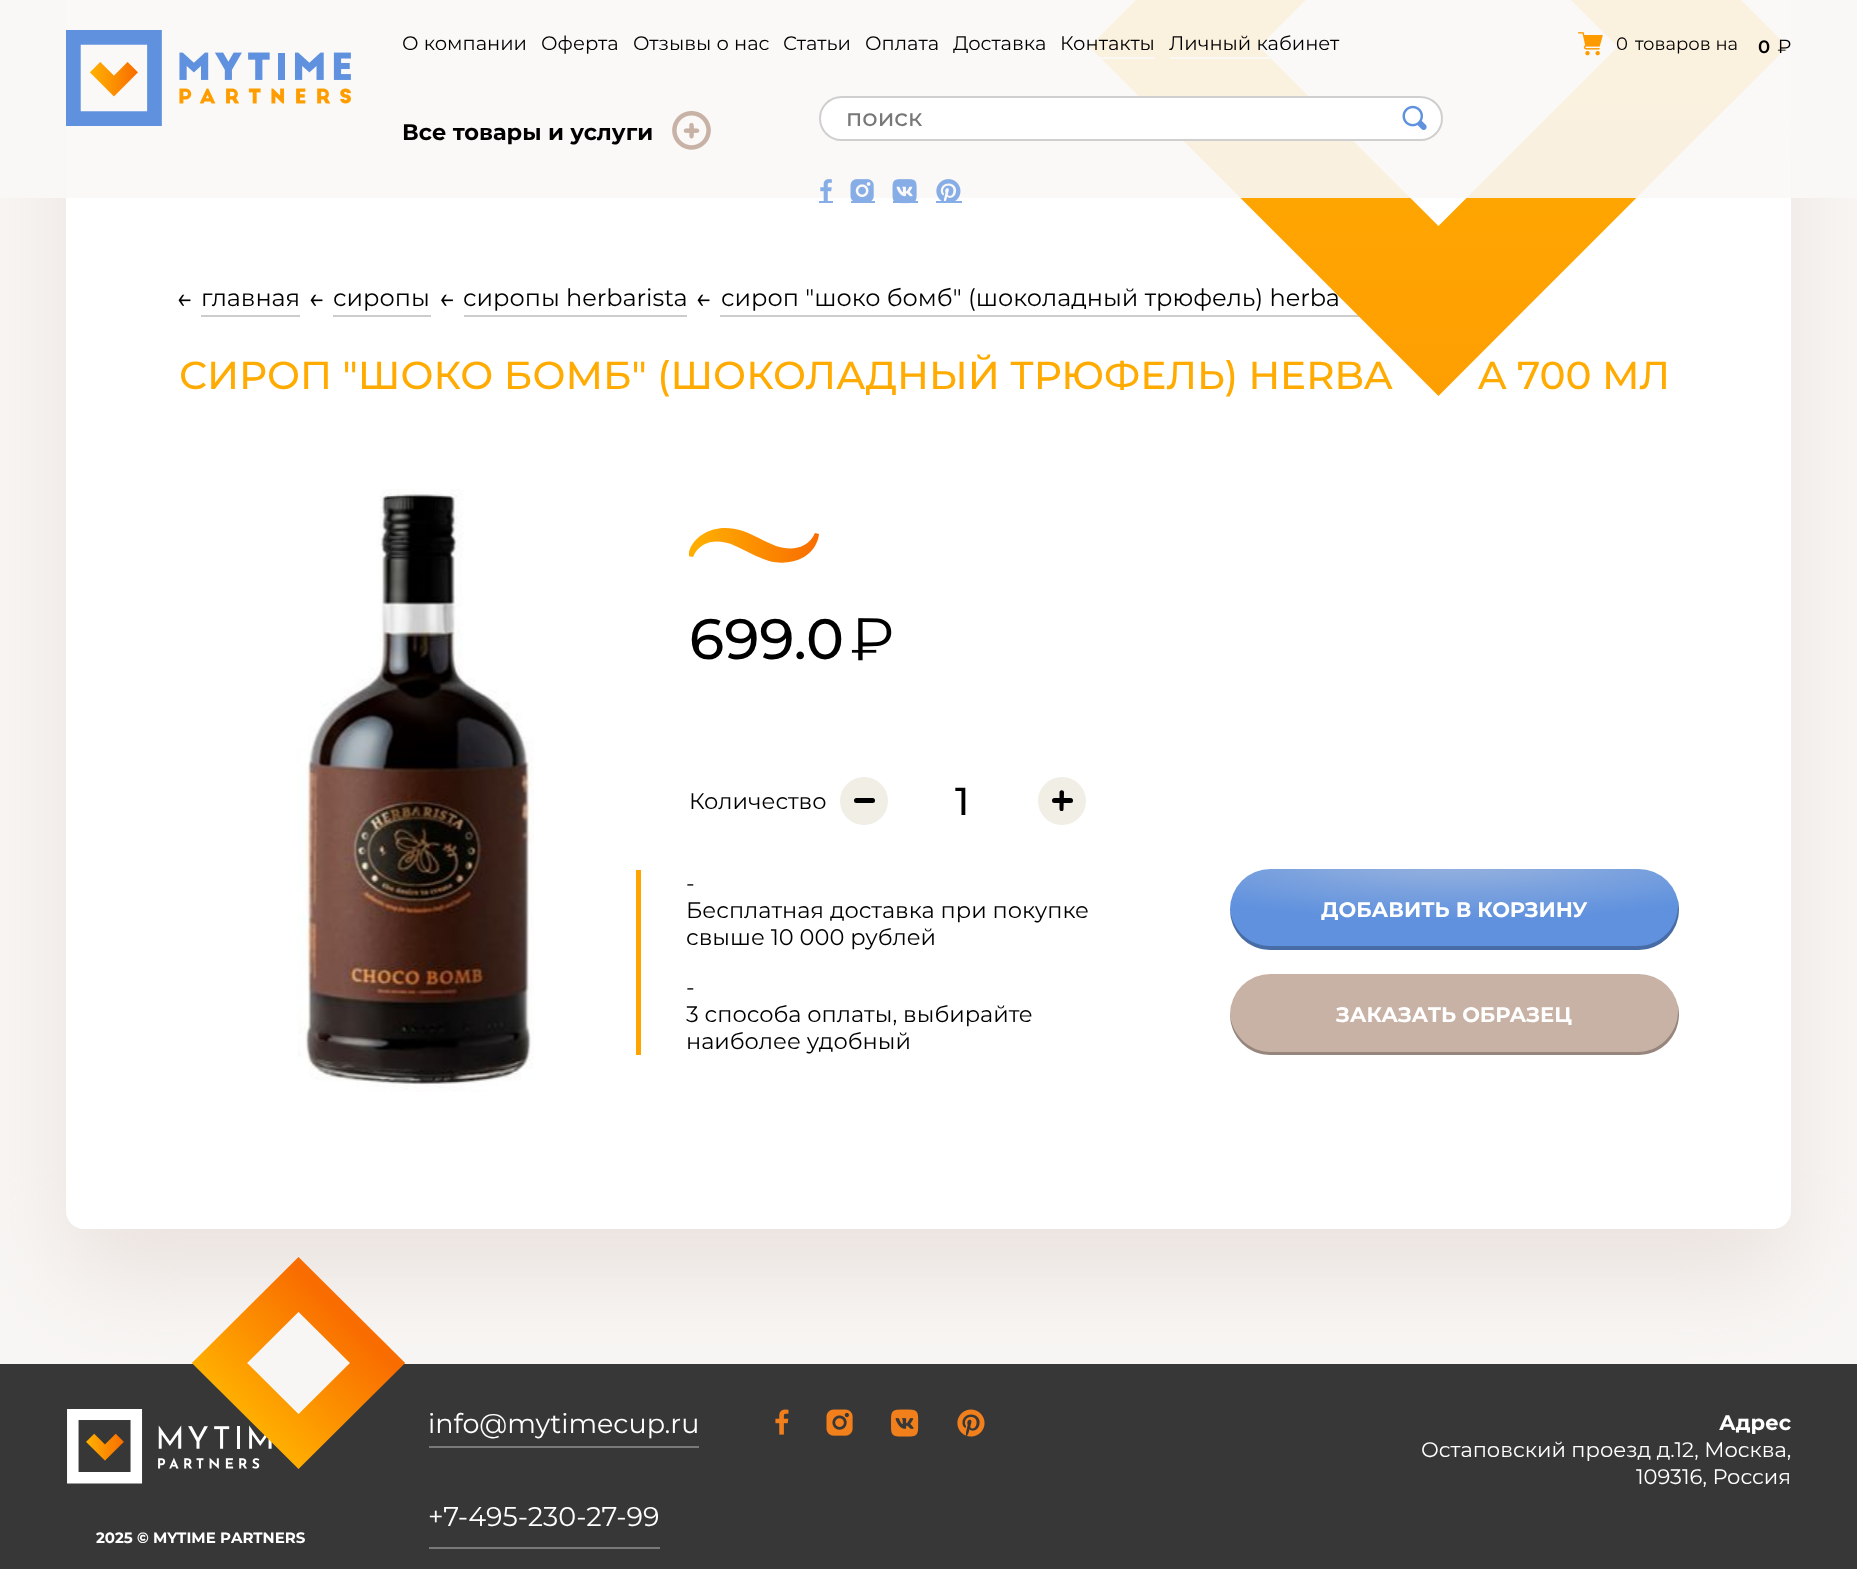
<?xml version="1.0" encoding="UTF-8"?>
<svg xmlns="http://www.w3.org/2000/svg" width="1857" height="1569">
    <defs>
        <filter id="blur1" x="-50%" y="-200%" width="200%" height="500%"><feGaussianBlur stdDeviation="48"/></filter>
        <clipPath id="clip1"><rect x="689" y="528" width="130" height="35"/></clipPath>
        <linearGradient id="g1" gradientUnits="userSpaceOnUse" x1="689" y1="545" x2="819" y2="545"><stop offset="0.06" stop-color="#FFAE00"/><stop offset="1" stop-color="#F96C00"/></linearGradient>
        <radialGradient id="g2" gradientUnits="userSpaceOnUse" cx="0" cy="0" r="1" gradientTransform="matrix(347 0 0 63 1454 857)"><stop offset="0" stop-color="#9DB6DE"/><stop offset="1" stop-color="#5F91DE"/></radialGradient>
        <linearGradient id="g3" gradientUnits="userSpaceOnUse" x1="253" y1="1436" x2="359" y2="1329"><stop offset="0.06" stop-color="#FFAE00"/><stop offset="1" stop-color="#F96C00"/></linearGradient>
    </defs>
    <rect width="100%" height="100%" fill="#F8F6F4"/>
    <rect x="66" y="48" width="1725" height="1229" rx="18" fill="#EAE2DE" filter="url(#blur1)"/>
    <path d="M 66 0 H 1791 V 1211 C 1791 1221 1783 1229 1773 1229 H 84 C 74 1229 66 1221 66 1211 Z" fill="#FFFFFF"/>
    <rect x="720" y="315" width="640" height="2" fill="#CCCCCC"/>
    <text x="721" y="306" font-family="Montserrat" font-size="24" fill="#000000">сироп "шоко бомб" (шоколадный трюфель) herba</text>
    <text x="179" y="389" font-family="Montserrat" font-size="39" font-weight="500" fill="#FFAB01">СИРОП "ШОКО БОМБ" (ШОКОЛАДНЫЙ ТРЮФЕЛЬ) HERBA</text>
    <text x="1478" y="389" font-family="Montserrat" font-size="39" font-weight="500" fill="#FFAB01">A 700 МЛ</text>
    <image x="1089" y="0" width="699" height="396" href="img_12.png"/>
    <rect x="0" y="0" width="1857" height="198" fill="#FAF8F7" fill-opacity="0.9"/>
    <image x="66" y="30" width="285" height="96" href="img_01.png"/>
    <text x="402" y="50" font-family="Montserrat" font-size="19.5" fill="#000000">О компании</text>
    <text x="541" y="50" font-family="Montserrat" font-size="19.5" fill="#000000">Оферта</text>
    <text x="633" y="50" font-family="Montserrat" font-size="19.5" fill="#000000">Отзывы о нас</text>
    <text x="783" y="50" font-family="Montserrat" font-size="19.5" fill="#000000">Статьи</text>
    <text x="865" y="50" font-family="Montserrat" font-size="19.5" fill="#000000">Оплата</text>
    <text x="953" y="50" font-family="Montserrat" font-size="19.5" fill="#000000">Доставка</text>
    <rect x="1100" y="57" width="55" height="2" fill="#FAF8F7"/>
    <text x="1060" y="50" font-family="Montserrat" font-size="19.5" fill="#000000">Контакты</text>
    <rect x="1170" y="57" width="101" height="2" fill="#FAF8F7"/>
    <text x="1169" y="50" font-family="Montserrat" font-size="19.5" fill="#000000">Личный кабинет</text>
    <image x="1578" y="32" width="25" height="24" href="img_02.png"/>
    <text x="1616" y="50" font-family="Montserrat" font-size="18" fill="#000000">0</text>
    <text x="1635" y="50" font-family="Montserrat" font-size="18" fill="#000000">товаров на</text>
    <text x="1758" y="53" font-family="Montserrat" font-size="18" font-weight="600" fill="#000000">0</text>
    <image x="1777" y="39" width="14" height="14" href="img_03.png"/>
    <rect x="819" y="96" width="624" height="45" rx="22.5" fill="#FFFFFF"/>
    <rect x="820" y="97" width="622" height="43" rx="21.5" fill="none" stroke="#000000" stroke-opacity="0.19" stroke-width="2"/>
    <text x="846" y="126" font-family="Montserrat" font-size="24" font-weight="500" fill="#787878">поиск</text>
    <image x="1402" y="105" width="25" height="25" href="img_04.png"/>
    <rect x="819" y="201" width="14" height="2" fill="#87ADE6"/>
    <image x="820" y="179" width="12" height="22" href="img_05.png"/>
    <rect x="851" y="201" width="24" height="2" fill="#87ADE6"/>
    <image x="850" y="179" width="24" height="22" href="img_06.png"/>
    <rect x="893" y="201" width="25" height="2" fill="#87ADE6"/>
    <image x="892" y="179" width="25" height="25" href="img_07.png"/>
    <rect x="936" y="201" width="26" height="2" fill="#87ADE6"/>
    <image x="936" y="179" width="25" height="25" href="img_08.png"/>
    <text x="402" y="140" font-family="Montserrat" font-size="22.5" font-weight="700" fill="#000000">Все товары и услуги</text>
    <image x="672" y="111" width="39" height="39" href="img_09.png"/>
    <image x="178" y="294" width="13" height="12" href="img_10.png"/>
    <rect x="201" y="315" width="99" height="2" fill="#CCCCCC"/>
    <text x="201" y="306" font-family="Montserrat" font-size="24" fill="#000000">главная</text>
    <image x="310" y="294" width="13" height="12" href="img_10.png"/>
    <rect x="333" y="315" width="98" height="2" fill="#CCCCCC"/>
    <text x="333" y="306" font-family="Montserrat" font-size="24" fill="#000000">сиропы</text>
    <image x="441" y="294" width="12" height="12" href="img_11.png"/>
    <rect x="464" y="315" width="223" height="2" fill="#CCCCCC"/>
    <text x="463" y="306" font-family="Montserrat" font-size="24" fill="#000000">сиропы herbarista</text>
    <image x="697" y="294" width="13" height="12" href="img_10.png"/>
    <image x="297" y="489" width="237" height="603" href="img_13.png"/>
    <g clip-path="url(#clip1)">
        <path d="M 725 528 C 731 528 737 529 743 531 C 754 535 765 542 776 546 C 791 551 808 549 815 533 L 819 534 C 818 544 812 552 804 557 C 794 563 780 564 769 561 C 755 557 744 549 731 544 C 716 539 700 541 693 557 L 688 556 C 691 538 708 528 725 528 Z" fill="url(#g1)"/>
    </g>
    <text x="689" y="659" font-family="Montserrat" font-size="57" font-weight="500" fill="#000000">699.0</text>
    <image x="851" y="618" width="41" height="43" href="img_14.png"/>
    <text x="689" y="809" font-family="Montserrat" font-size="22.5" fill="#000000">Количество</text>
    <circle cx="864" cy="801" r="24" fill="#F1EEE5"/>
    <rect x="854" y="798" width="21" height="5" rx="2.5" fill="#000000"/>
    <text x="955" y="815" font-family="Montserrat" font-size="39" font-weight="500" fill="#000000">1</text>
    <circle cx="1062" cy="801" r="24" fill="#F1EEE5"/>
    <rect x="1052" y="798" width="21" height="5" rx="2.5" fill="#000000"/>
    <path d="M 1064 792.5 L 1063.5 809.5 C 1063.5 810.5 1062.5 811 1062 811 C 1059 811.5 1059.5 808 1059.5 806 V 792 C 1060 789.5 1064 789.5 1064 792.5 Z" fill="#000000"/>
    <rect x="636" y="870" width="5" height="185" fill="#FFA301"/>
    <text font-family="Montserrat" font-size="22.5" fill="#000000">
        <tspan x="686" y="891">-</tspan>
        <tspan x="686" y="918">Бесплатная доставка при покупке</tspan>
        <tspan x="686" y="945">свыше 10 000 рублей</tspan>
    </text>
    <text font-family="Montserrat" font-size="22.5" fill="#000000">
        <tspan x="686" y="995">-</tspan>
        <tspan x="686" y="1022">3 способа оплаты, выбирайте</tspan>
        <tspan x="686" y="1049">наиболее удобный</tspan>
    </text>
    <rect x="1230" y="869" width="449" height="81" rx="40.5" fill="url(#g2)"/>
    <path d="M 1230 908 V 910 C 1230 932 1248 950 1270 950 H 1638 C 1661 950 1679 932 1679 910 C 1679 905 1678 900 1677 896 C 1678 899 1678 903 1678 906 C 1678 928 1660 946 1638 946 H 1270 C 1249 946 1231 929 1230 908 Z" fill="#000000" fill-opacity="0.25"/>
    <text x="1321" y="917" font-family="Montserrat" font-size="21" font-weight="700" fill="#FFFFFF">ДОБАВИТЬ В КОРЗИНУ</text>
    <rect x="1230" y="974" width="449" height="81" rx="40.5" fill="#C8B2A6"/>
    <path d="M 1230 1013 V 1014 C 1230 1037 1248 1055 1270 1055 H 1638 C 1661 1055 1679 1037 1679 1014 C 1679 1010 1678 1006 1677 1001 C 1678 1005 1678 1008 1678 1011 C 1678 1033 1660 1052 1638 1052 H 1270 C 1249 1052 1231 1034 1230 1013 Z" fill="#000000" fill-opacity="0.25"/>
    <text x="1336" y="1022" font-family="Montserrat" font-size="21" font-weight="700" fill="#FFFFFF">ЗАКАЗАТЬ ОБРАЗЕЦ</text>
    <rect x="0" y="1364" width="1857" height="205" fill="#373737"/>
    <rect x="429" y="1446" width="270" height="2" fill="#797979"/>
    <text x="428" y="1433" font-family="Montserrat" font-size="27" fill="#FFFFFF">info@mytimecup.ru</text>
    <image x="775" y="1409" width="14" height="26" href="img_15.png"/>
    <image x="826" y="1409" width="27" height="27" href="img_16.png"/>
    <image x="891" y="1409" width="28" height="28" href="img_17.png"/>
    <image x="957" y="1409" width="28" height="28" href="img_18.png"/>
    <rect x="429" y="1547" width="231" height="2" fill="#797979"/>
    <text x="428" y="1526" font-family="Montserrat" font-size="27" fill="#FFFFFF">+7-495-230-27-99</text>
    <text x="1719" y="1430" font-family="Montserrat" font-size="21" font-weight="700" fill="#FFFFFF">Адрес</text>
    <text x="1421" y="1457" font-family="Montserrat" font-size="21" fill="#FFFFFF">Остаповский проезд д.12, Москва,</text>
    <text x="1636" y="1484" font-family="Montserrat" font-size="21" fill="#FFFFFF">109316, Россия</text>
    <image x="67" y="1409" width="205" height="75" href="img_19.png"/>
    <path d="M 220 1363 L 299 1285 L 377 1363 L 299 1442 Z" fill="#F8F6F4"/>
    <path d="M 219.5 1363 L 298.5 1284.5 L 377.5 1363 L 298.5 1441.5 Z" fill="none" stroke="url(#g3)" stroke-width="39"/>
    <text x="96" y="1543" font-family="Montserrat" font-size="15" font-weight="700" fill="#FFFFFF">2025 © MYTIME PARTNERS</text>
</svg>
